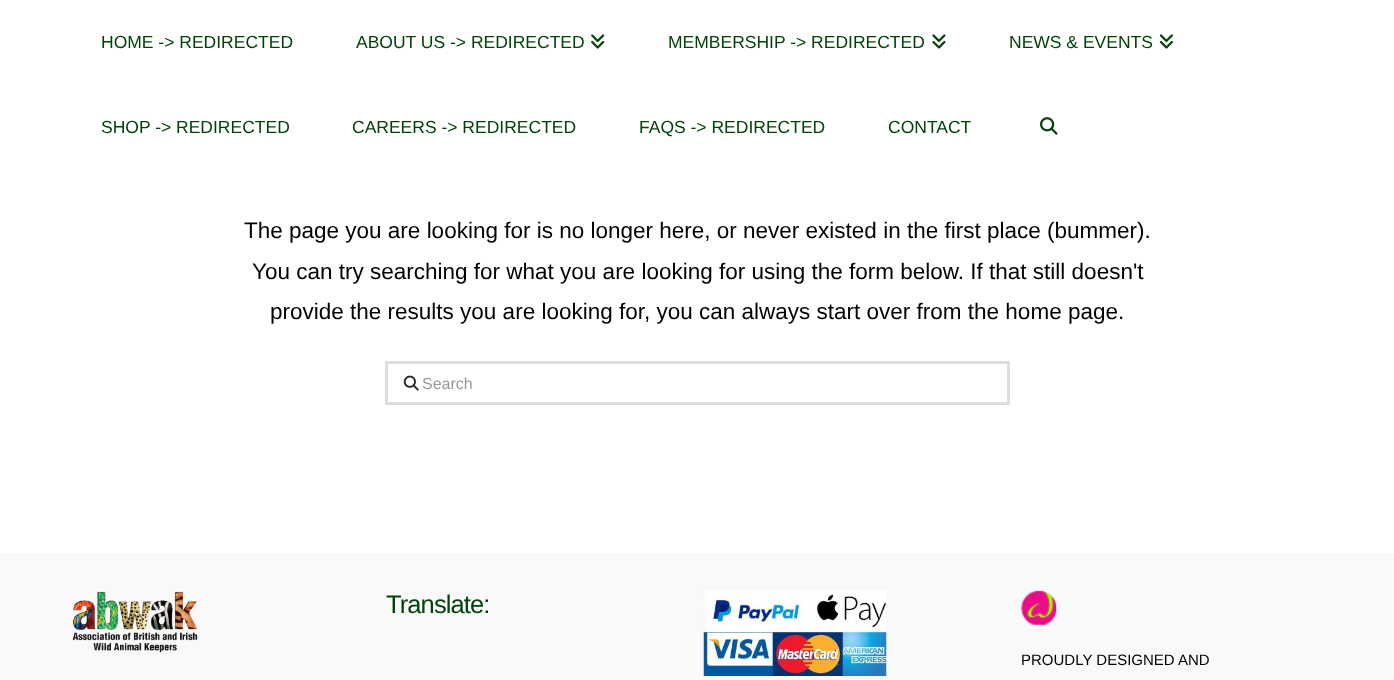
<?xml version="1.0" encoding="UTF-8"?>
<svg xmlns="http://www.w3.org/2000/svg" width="1394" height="680">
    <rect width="100%" height="100%" fill="#FFFFFF"/>
    <text x="101" y="48" font-family="Liberation Sans" font-size="17.5" fill="#014208">HOME -&gt; REDIRECTED</text>
    <text x="356" y="48" font-family="Liberation Sans" font-size="17.5" fill="#014208">ABOUT US -&gt; REDIRECTED</text>
    <image x="591" y="34" width="14" height="15" href="img_01.png"/>
    <text x="668" y="48" font-family="Liberation Sans" font-size="17.5" fill="#014208">MEMBERSHIP -&gt; REDIRECTED</text>
    <image x="932" y="34" width="14" height="15" href="img_02.png"/>
    <text x="1009" y="48" font-family="Liberation Sans" font-size="17.5" fill="#014208">NEWS &amp; EVENTS</text>
    <image x="1159" y="34" width="14" height="15" href="img_03.png"/>
    <text x="101" y="133" font-family="Liberation Sans" font-size="17.5" fill="#014208">SHOP -&gt; REDIRECTED</text>
    <text x="352" y="133" font-family="Liberation Sans" font-size="17.5" fill="#014208">CAREERS -&gt; REDIRECTED</text>
    <text x="639" y="133" font-family="Liberation Sans" font-size="17.5" fill="#014208">FAQS -&gt; REDIRECTED</text>
    <text x="888" y="133" font-family="Liberation Sans" font-size="17.5" fill="#014208">CONTACT</text>
    <image x="1040" y="117" width="18" height="18" href="img_04.png"/>
    <text x="244" y="238" font-family="Liberation Sans" font-size="22.5" fill="#000000">The page you are looking for is no longer here, or never existed in the first place (bummer).</text>
    <text x="252" y="279" font-family="Liberation Sans" font-size="22.5" fill="#000000">You can try searching for what you are looking for using the form below. If that still doesn't</text>
    <text x="270" y="319" font-family="Liberation Sans" font-size="22.5" fill="#000000">provide the results you are looking for, you can always start over from the home page.</text>
    <rect x="386.5" y="362.5" width="622" height="41" fill="none" stroke="#DDDDDD" stroke-width="3"/>
    <image x="403" y="375" width="16" height="16" href="img_05.png"/>
    <text x="422" y="389" font-family="Liberation Sans" font-size="16" fill="#999999">Search</text>
    <rect x="0" y="553" width="1394" height="127" fill="#F9F9F9"/>
    <image x="72" y="591" width="126" height="62" href="img_06.png"/>
    <text x="386" y="613" font-family="Liberation Sans" font-size="25.5" letter-spacing="-0.9" fill="#014208">Translate:</text>
    <image x="703" y="590" width="184" height="86" href="img_07.png"/>
    <image x="1021" y="590" width="36" height="35" href="img_08.png"/>
    <text x="1021" y="665" font-family="Liberation Sans" font-size="15" fill="#000000">PROUDLY DESIGNED AND</text>
</svg>
